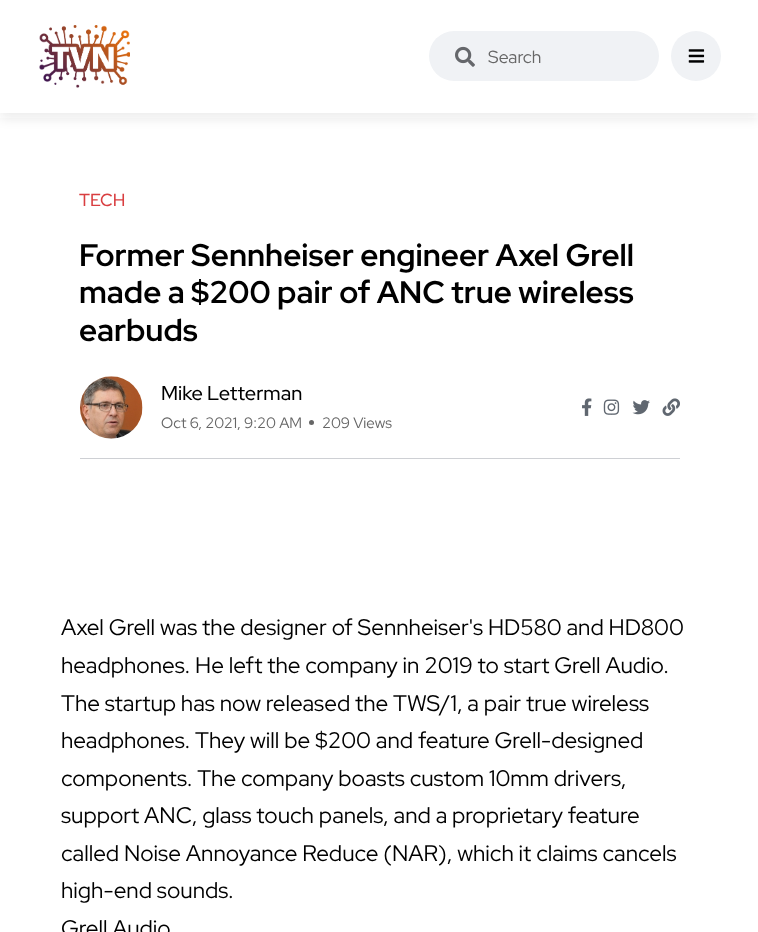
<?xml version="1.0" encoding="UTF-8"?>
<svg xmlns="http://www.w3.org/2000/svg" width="758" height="932">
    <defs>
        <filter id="blur1" x="-50%" y="-200%" width="200%" height="500%"><feGaussianBlur stdDeviation="6"/></filter>
    </defs>
    <rect width="100%" height="100%" fill="#FFFFFF"/>
    <rect x="0" y="5" width="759" height="113" fill="#252F3F" fill-opacity="0.1" filter="url(#blur1)"/>
    <rect x="0" y="0" width="758" height="113" fill="#FFFFFF"/>
    <image x="39" y="25" width="91" height="63" href="img_01.png"/>
    <rect x="429" y="31" width="230" height="50" rx="25" fill="#F0F2F5"/>
    <image x="455" y="46" width="20" height="21" href="img_02.png"/>
    <text x="488" y="63" font-family="Red Hat Display" font-size="17.5" fill="#666666">Search</text>
    <circle cx="696" cy="56" r="25" fill="#F0F2F5"/>
    <image x="688" y="49" width="17" height="14" href="img_03.png"/>
    <text x="79" y="206" font-family="Red Hat Display" font-size="17.5" font-weight="500" fill="#D93E40">TECH</text>
    <text font-family="Red Hat Display" font-size="31.25" font-weight="700" fill="#000000">
        <tspan x="79" y="266">Former Sennheiser engineer Axel Grell</tspan>
        <tspan x="79" y="303">made a $200 pair of ANC true wireless</tspan>
        <tspan x="79" y="341">earbuds</tspan>
    </text>
    <rect x="80" y="458" width="600" height="1" fill="#CED0D4"/>
    <image x="80" y="376" width="63" height="63" href="img_04.png"/>
    <text x="161" y="400" font-family="Red Hat Display" font-size="20" font-weight="500" fill="#000000">Mike Letterman</text>
    <text x="161" y="428" font-family="Red Hat Display" font-size="15" fill="#666666">Oct 6, 2021, 9:20 AM</text>
    <circle cx="311.5" cy="422.5" r="2.5" fill="#666666"/>
    <text x="322" y="428" font-family="Red Hat Display" font-size="15" fill="#666666">209 Views</text>
    <image x="582" y="398" width="10" height="18" href="img_05.png"/>
    <image x="603" y="399" width="17" height="16" href="img_06.png"/>
    <image x="632" y="400" width="18" height="15" href="img_07.png"/>
    <image x="662" y="398" width="18" height="18" href="img_08.png"/>
    <text font-family="Red Hat Display" font-size="22.5" fill="#000000">
        <tspan x="61" y="635">Axel Grell was the designer of Sennheiser's HD580 and HD800</tspan>
        <tspan x="61" y="673">headphones. He left the company in 2019 to start Grell Audio.</tspan>
        <tspan x="61" y="711">The startup has now released the TWS/1, a pair true wireless</tspan>
        <tspan x="61" y="748">headphones. They will be $200 and feature Grell-designed</tspan>
        <tspan x="61" y="786">components. The company boasts custom 10mm drivers,</tspan>
        <tspan x="61" y="823">support ANC, glass touch panels, and a proprietary feature</tspan>
        <tspan x="61" y="861">called Noise Annoyance Reduce (NAR), which it claims cancels</tspan>
        <tspan x="61" y="898">high-end sounds.</tspan>
        <tspan x="61" y="936">Grell Audio</tspan>
    </text>
</svg>
